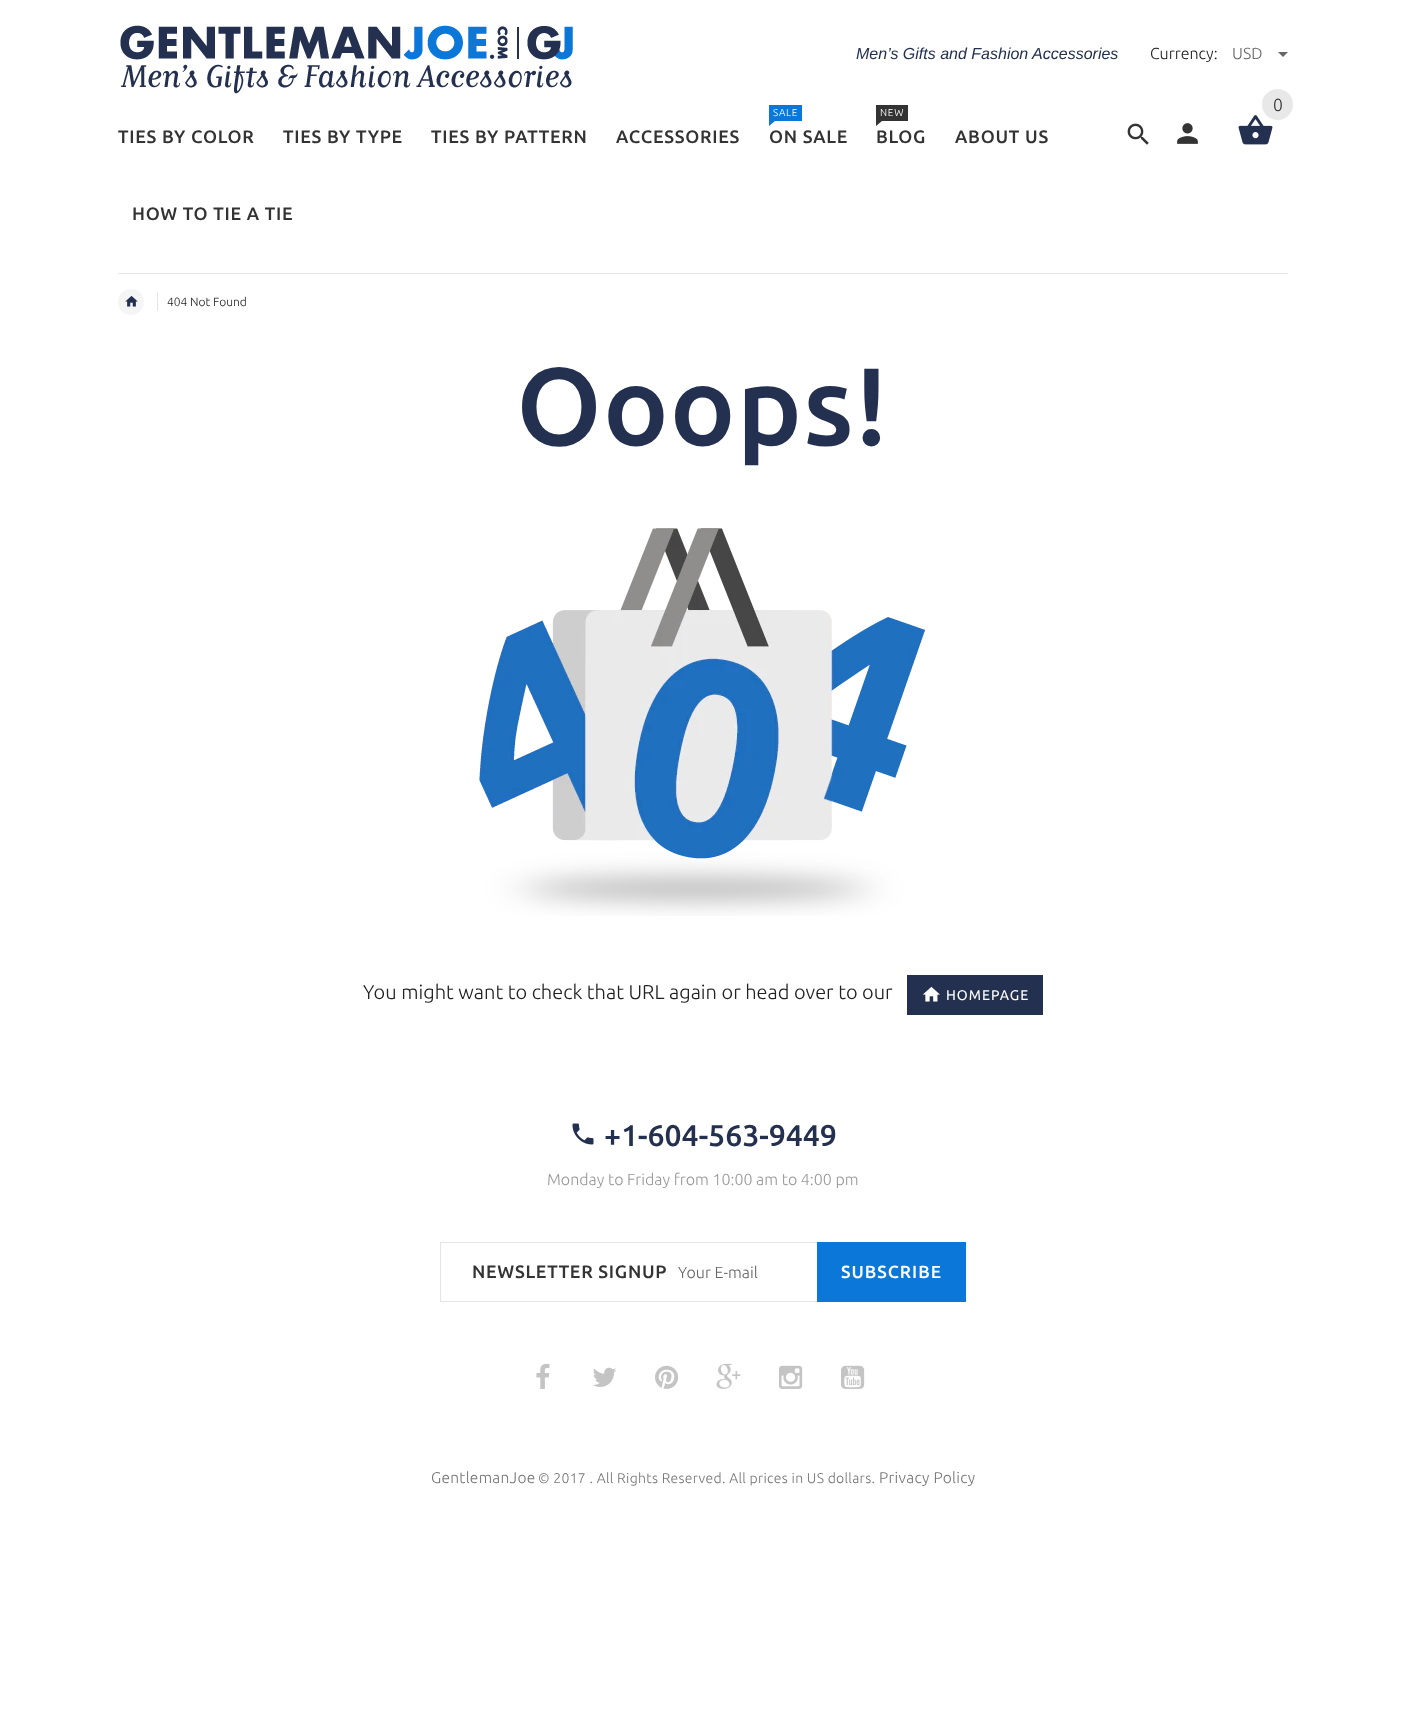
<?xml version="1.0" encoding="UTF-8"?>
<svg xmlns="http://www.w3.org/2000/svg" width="1406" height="1717">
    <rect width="100%" height="100%" fill="#FFFFFF"/>
    <image x="120" y="25" width="453" height="69" href="img_01.png"/>
    <text x="856" y="59" font-family="Liberation Sans" font-size="16" font-style="italic" fill="#23304F">Men’s Gifts and Fashion Accessories</text>
    <text x="1150" y="59" font-family="Ubuntu" font-size="16" font-weight="300" fill="#222222">Currency:</text>
    <text x="1232" y="59" font-family="Ubuntu" font-size="16" font-weight="300" fill="#666666">USD</text>
    <path d="M 1278 52 H 1288 L 1283 57 Z" fill="#666666"/>
    <image x="1238" y="115" width="35" height="30" href="img_02.png"/>
    <circle cx="1277.5" cy="104.5" r="15.5" fill="#E8E8E8"/>
    <text x="1273" y="111" font-family="Ubuntu" font-size="17.5" font-weight="300" fill="#333333">0</text>
    <image x="1127" y="123" width="22" height="22" href="img_03.png"/>
    <image x="1177" y="123" width="21" height="21" href="img_04.png"/>
    <text x="118" y="143" font-family="Ubuntu" font-size="18" font-weight="500" letter-spacing="0.75" fill="#333333">TIES BY COLOR</text>
    <text x="283" y="143" font-family="Ubuntu" font-size="18" font-weight="500" letter-spacing="0.75" fill="#333333">TIES BY TYPE</text>
    <text x="431" y="143" font-family="Ubuntu" font-size="18" font-weight="500" letter-spacing="0.75" fill="#333333">TIES BY PATTERN</text>
    <text x="616" y="143" font-family="Ubuntu" font-size="18" font-weight="500" letter-spacing="0.75" fill="#333333">ACCESSORIES</text>
    <rect x="769" y="105" width="33" height="16" fill="#0B77D8"/>
    <text x="773" y="116" font-family="Ubuntu" font-size="10" font-weight="300" letter-spacing="0.75" fill="#FFFFFF">SALE</text>
    <path d="M 769 121 H 775 L 769 126 Z" fill="#0B77D8"/>
    <text x="769" y="143" font-family="Ubuntu" font-size="18" font-weight="500" letter-spacing="0.75" fill="#333333">ON SALE</text>
    <rect x="876" y="105" width="32" height="16" fill="#333333"/>
    <text x="880" y="116" font-family="Ubuntu" font-size="10" font-weight="300" letter-spacing="0.75" fill="#FFFFFF">NEW</text>
    <path d="M 876 121 H 882 L 876 126 Z" fill="#333333"/>
    <text x="876" y="143" font-family="Ubuntu" font-size="18" font-weight="500" letter-spacing="0.75" fill="#333333">BLOG</text>
    <text x="955" y="143" font-family="Ubuntu" font-size="18" font-weight="500" letter-spacing="0.75" fill="#333333">ABOUT US</text>
    <text x="132" y="220" font-family="Ubuntu" font-size="18" font-weight="500" letter-spacing="0.75" fill="#333333">HOW TO TIE A TIE</text>
    <rect x="118" y="273" width="1170" height="1" fill="#E5E5E5"/>
    <circle cx="131" cy="302" r="13" fill="#F5F5F5"/>
    <image x="125" y="296" width="13" height="11" href="img_05.png"/>
    <rect x="157" y="292" width="1" height="19" fill="#E5E5E5"/>
    <text x="167" y="306" font-family="Ubuntu" font-size="12" font-weight="300" fill="#222222">404 Not Found</text>
    <text x="516" y="445" font-family="Ubuntu" font-size="110" font-weight="500" letter-spacing="1" fill="#23304F">Ooops!</text>
    <image x="479" y="528" width="446" height="388" href="img_06.png"/>
    <text x="363" y="999" font-family="Ubuntu" font-size="20" font-weight="300" fill="#222222">You might want to check that URL again or head over to our</text>
    <rect x="907" y="975" width="136" height="40" fill="#23304F"/>
    <image x="922" y="986" width="18" height="16" href="img_07.png"/>
    <text x="946" y="1000" font-family="Ubuntu" font-size="14" letter-spacing="1" fill="#FFFFFF">HOMEPAGE</text>
    <image x="572" y="1123" width="22" height="22" href="img_08.png"/>
    <text x="604" y="1146" font-family="Ubuntu" font-size="30" font-weight="500" fill="#23304F">+1-604-563-9449</text>
    <text x="547" y="1185" font-family="Ubuntu" font-size="16" font-weight="300" fill="#999999">Monday to Friday from 10:00 am to 4:00 pm</text>
    <rect x="440" y="1242" width="1" height="60" fill="#E5E5E5"/>
    <rect x="441" y="1242" width="376" height="1" fill="#E5E5E5"/>
    <text x="472" y="1278" font-family="Ubuntu" font-size="18" font-weight="500" letter-spacing="0.75" fill="#333333">NEWSLETTER SIGNUP</text>
    <text x="678" y="1278" font-family="Ubuntu" font-size="16" font-weight="300" fill="#666666">Your E-mail</text>
    <rect x="817" y="1242" width="149" height="60" fill="#0B77D8"/>
    <text x="841" y="1278" font-family="Ubuntu" font-size="17.5" font-weight="500" letter-spacing="1" fill="#FFFFFF">SUBSCRIBE</text>
    <rect x="441" y="1301" width="376" height="1" fill="#E5E5E5"/>
    <image x="536" y="1363" width="14" height="26" href="img_09.png"/>
    <image x="593" y="1367" width="24" height="20" href="img_10.png"/>
    <image x="655" y="1365" width="24" height="24" href="img_11.png"/>
    <image x="716" y="1363" width="25" height="26" href="img_12.png"/>
    <image x="779" y="1365" width="24" height="24" href="img_13.png"/>
    <image x="841" y="1365" width="24" height="24" href="img_14.png"/>
    <text x="431" y="1483" font-family="Ubuntu" font-size="15.5" font-weight="300" letter-spacing="0.28" fill="#777777">GentlemanJoe</text>
    <text x="538" y="1483" font-family="Ubuntu" font-size="14" font-weight="300" letter-spacing="0.28" fill="#777777">© 2017 . All Rights Reserved. All prices in US dollars.</text>
    <text x="879" y="1483" font-family="Ubuntu" font-size="15.5" font-weight="300" letter-spacing="0.28" fill="#777777">Privacy Policy</text>
</svg>
